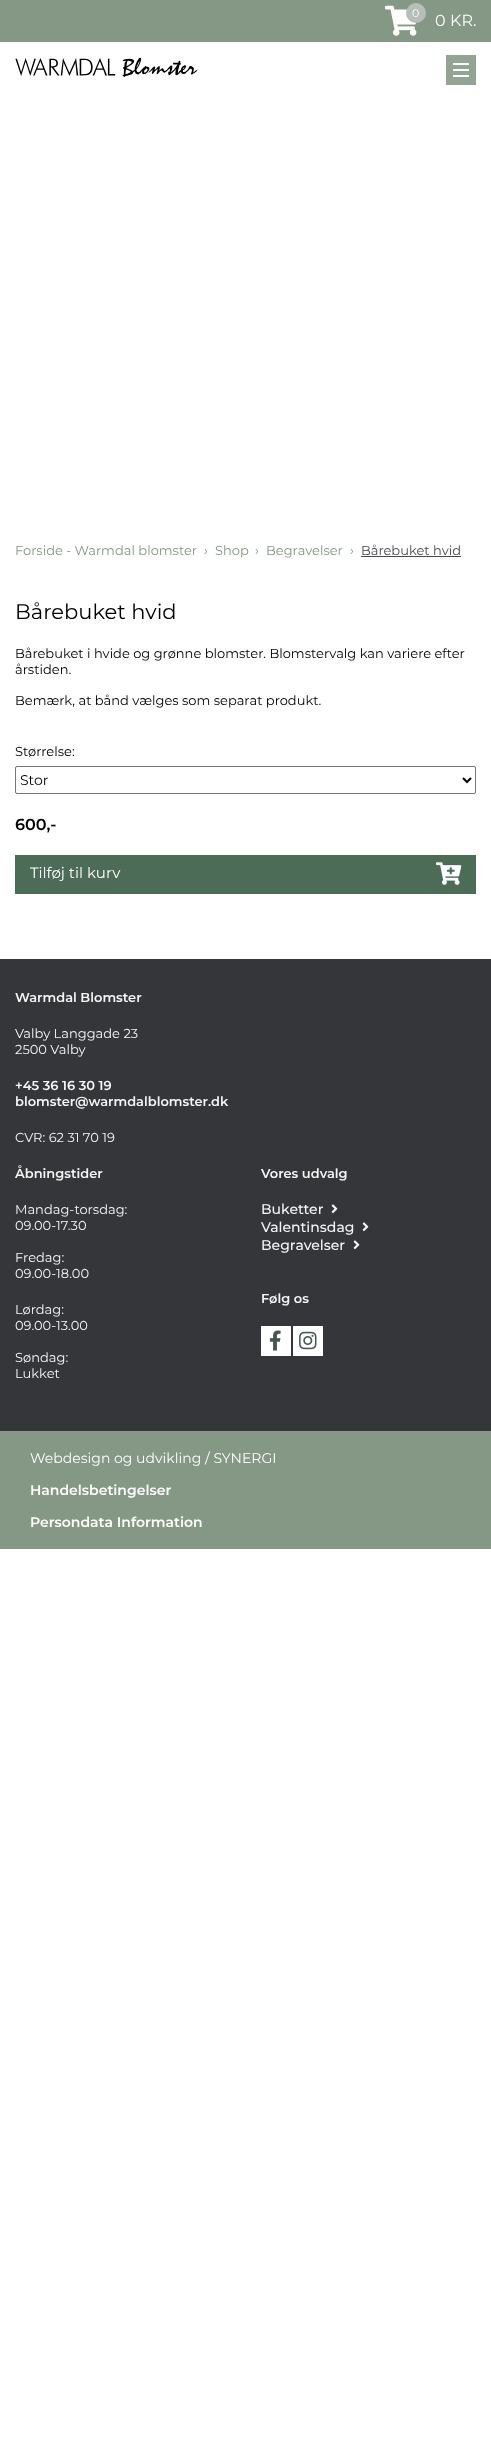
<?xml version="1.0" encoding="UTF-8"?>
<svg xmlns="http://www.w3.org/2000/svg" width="491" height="2455">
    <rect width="100%" height="100%" fill="#FFFFFF"/>
    <rect x="0" y="0" width="491" height="42" fill="#859886"/>
    <image x="385" y="5" width="32" height="31" href="img_01.png"/>
    <circle cx="416" cy="13" r="10" fill="#B7BEB7"/>
    <text x="412" y="17" font-family="Montserrat" font-size="11" fill="#FFFFFF">0</text>
    <text x="435" y="26" font-family="Montserrat" font-size="16" fill="#FFFFFF">0</text>
    <text x="450" y="26" font-family="Montserrat" font-size="16" fill="#FFFFFF">KR.</text>
    <image x="15" y="57" width="183" height="20" href="img_02.png"/>
    <rect x="446" y="55" width="30" height="30" fill="#93A494"/>
    <rect x="453" y="69" width="16" height="2" fill="#FBFBFB"/>
    <rect x="453" y="63" width="16" height="2" fill="#FBFBFB"/>
    <rect x="453" y="75" width="16" height="2" fill="#FBFBFB"/>
    <text x="15" y="555" font-family="Montserrat" font-size="13" fill="#859886">Forside - Warmdal blomster</text>
    <text x="204" y="555" font-family="Montserrat" font-size="13" fill="#859886">›</text>
    <text x="215" y="555" font-family="Montserrat" font-size="13" fill="#859886">Shop</text>
    <text x="255" y="555" font-family="Montserrat" font-size="13" fill="#859886">›</text>
    <text x="266" y="555" font-family="Montserrat" font-size="13" fill="#859886">Begravelser</text>
    <text x="350" y="555" font-family="Montserrat" font-size="13" fill="#859886">›</text>
    <text x="361" y="555" font-family="Montserrat" font-size="13" fill="#49484E">Bårebuket hvid</text>
    <rect x="361" y="556" width="100" height="1" fill="#49484E"/>
    <text x="15" y="619" font-family="Montserrat" font-size="21" fill="#000000">Bårebuket hvid</text>
    <text font-family="Montserrat" font-size="13" fill="#000000">
        <tspan x="15" y="658">Bårebuket i hvide og grønne blomster. Blomstervalg kan variere efter</tspan>
        <tspan x="15" y="674">årstiden.</tspan>
    </text>
    <text x="15" y="705" font-family="Montserrat" font-size="13" fill="#000000">Bemærk, at bånd vælges som separat produkt.</text>
    <text x="15" y="756" font-family="Montserrat" font-size="13" fill="#000000">Størrelse:</text>
    <rect x="15.5" y="766.5" width="460" height="27" rx="1.5" fill="none" stroke="#767676"/>
    <path d="M 463 778 L 467 782 L 471 778" fill="none" stroke="#000000" stroke-width="2"/>
    <text x="20" y="785" font-family="Montserrat" font-size="14" fill="#000000">Stor</text>
    <text x="15" y="830" font-family="Montserrat" font-size="16" font-weight="600" fill="#000000">600,-</text>
    <rect x="15" y="855" width="461" height="39" fill="#4C6C57"/>
    <text x="30" y="878" font-family="Montserrat" font-size="15" fill="#FFFFFF">Tilføj til kurv</text>
    <image x="436" y="862" width="26" height="23" href="img_03.png"/>
    <rect x="0" y="959" width="491" height="472" fill="#35363A"/>
    <text x="15" y="1002" font-family="Montserrat" font-size="13" font-weight="600" fill="#F5F5F5">Warmdal Blomster</text>
    <text font-family="Montserrat" font-size="13" fill="#F5F5F5">
        <tspan x="15" y="1038">Valby Langgade 23</tspan>
        <tspan x="15" y="1054">2500 Valby</tspan>
    </text>
    <text font-family="Montserrat" font-size="13" font-weight="600" fill="#F5F5F5">
        <tspan x="15" y="1090">+45 36 16 30 19</tspan>
        <tspan x="15" y="1106">blomster@warmdalblomster.dk</tspan>
    </text>
    <text x="15" y="1142" font-family="Montserrat" font-size="13" fill="#F5F5F5">CVR: 62 31 70 19</text>
    <text x="15" y="1178" font-family="Montserrat" font-size="13" font-weight="600" fill="#F5F5F5">Åbningstider</text>
    <text font-family="Montserrat" font-size="13" fill="#F5F5F5">
        <tspan x="15" y="1214">Mandag-torsdag:</tspan>
        <tspan x="15" y="1230">09.00-17.30</tspan>
    </text>
    <text font-family="Montserrat" font-size="13" fill="#F5F5F5">
        <tspan x="15" y="1262">Fredag:</tspan>
        <tspan x="15" y="1278">09.00-18.00</tspan>
    </text>
    <text font-family="Montserrat" font-size="13" fill="#F5F5F5">
        <tspan x="15" y="1314">Lørdag:</tspan>
        <tspan x="15" y="1330">09.00-13.00</tspan>
    </text>
    <text font-family="Montserrat" font-size="13" fill="#F5F5F5">
        <tspan x="15" y="1362">Søndag:</tspan>
        <tspan x="15" y="1378">Lukket</tspan>
    </text>
    <text x="261" y="1178" font-family="Montserrat" font-size="13" font-weight="600" fill="#F5F5F5">Vores udvalg</text>
    <text x="261" y="1214" font-family="Montserrat" font-size="14" font-weight="500" fill="#F5F5F5">Buketter</text>
    <image x="331" y="1204" width="7" height="10" href="img_04.png"/>
    <text x="261" y="1232" font-family="Montserrat" font-size="14" font-weight="500" fill="#F5F5F5">Valentinsdag</text>
    <image x="362" y="1222" width="7" height="10" href="img_04.png"/>
    <text x="261" y="1250" font-family="Montserrat" font-size="14" font-weight="500" fill="#F5F5F5">Begravelser</text>
    <image x="353" y="1240" width="7" height="10" href="img_04.png"/>
    <text x="261" y="1303" font-family="Montserrat" font-size="13" font-weight="600" fill="#F5F5F5">Følg os</text>
    <rect x="261" y="1326" width="30" height="30" fill="#FFFFFF"/>
    <image x="269" y="1330" width="12" height="21" href="img_05.png"/>
    <rect x="293" y="1326" width="30" height="30" fill="#FFFFFF"/>
    <image x="299" y="1331" width="18" height="19" href="img_06.png"/>
    <rect x="0" y="1431" width="491" height="118" fill="#859886"/>
    <text x="30" y="1463" font-family="Montserrat" font-size="14" fill="#FFFFFF">Webdesign og udvikling / SYNERGI</text>
    <text x="30" y="1495" font-family="Montserrat" font-size="14" font-weight="600" fill="#FFFFFF">Handelsbetingelser</text>
    <text x="30" y="1527" font-family="Montserrat" font-size="14" font-weight="600" fill="#FFFFFF">Persondata Information</text>
</svg>
